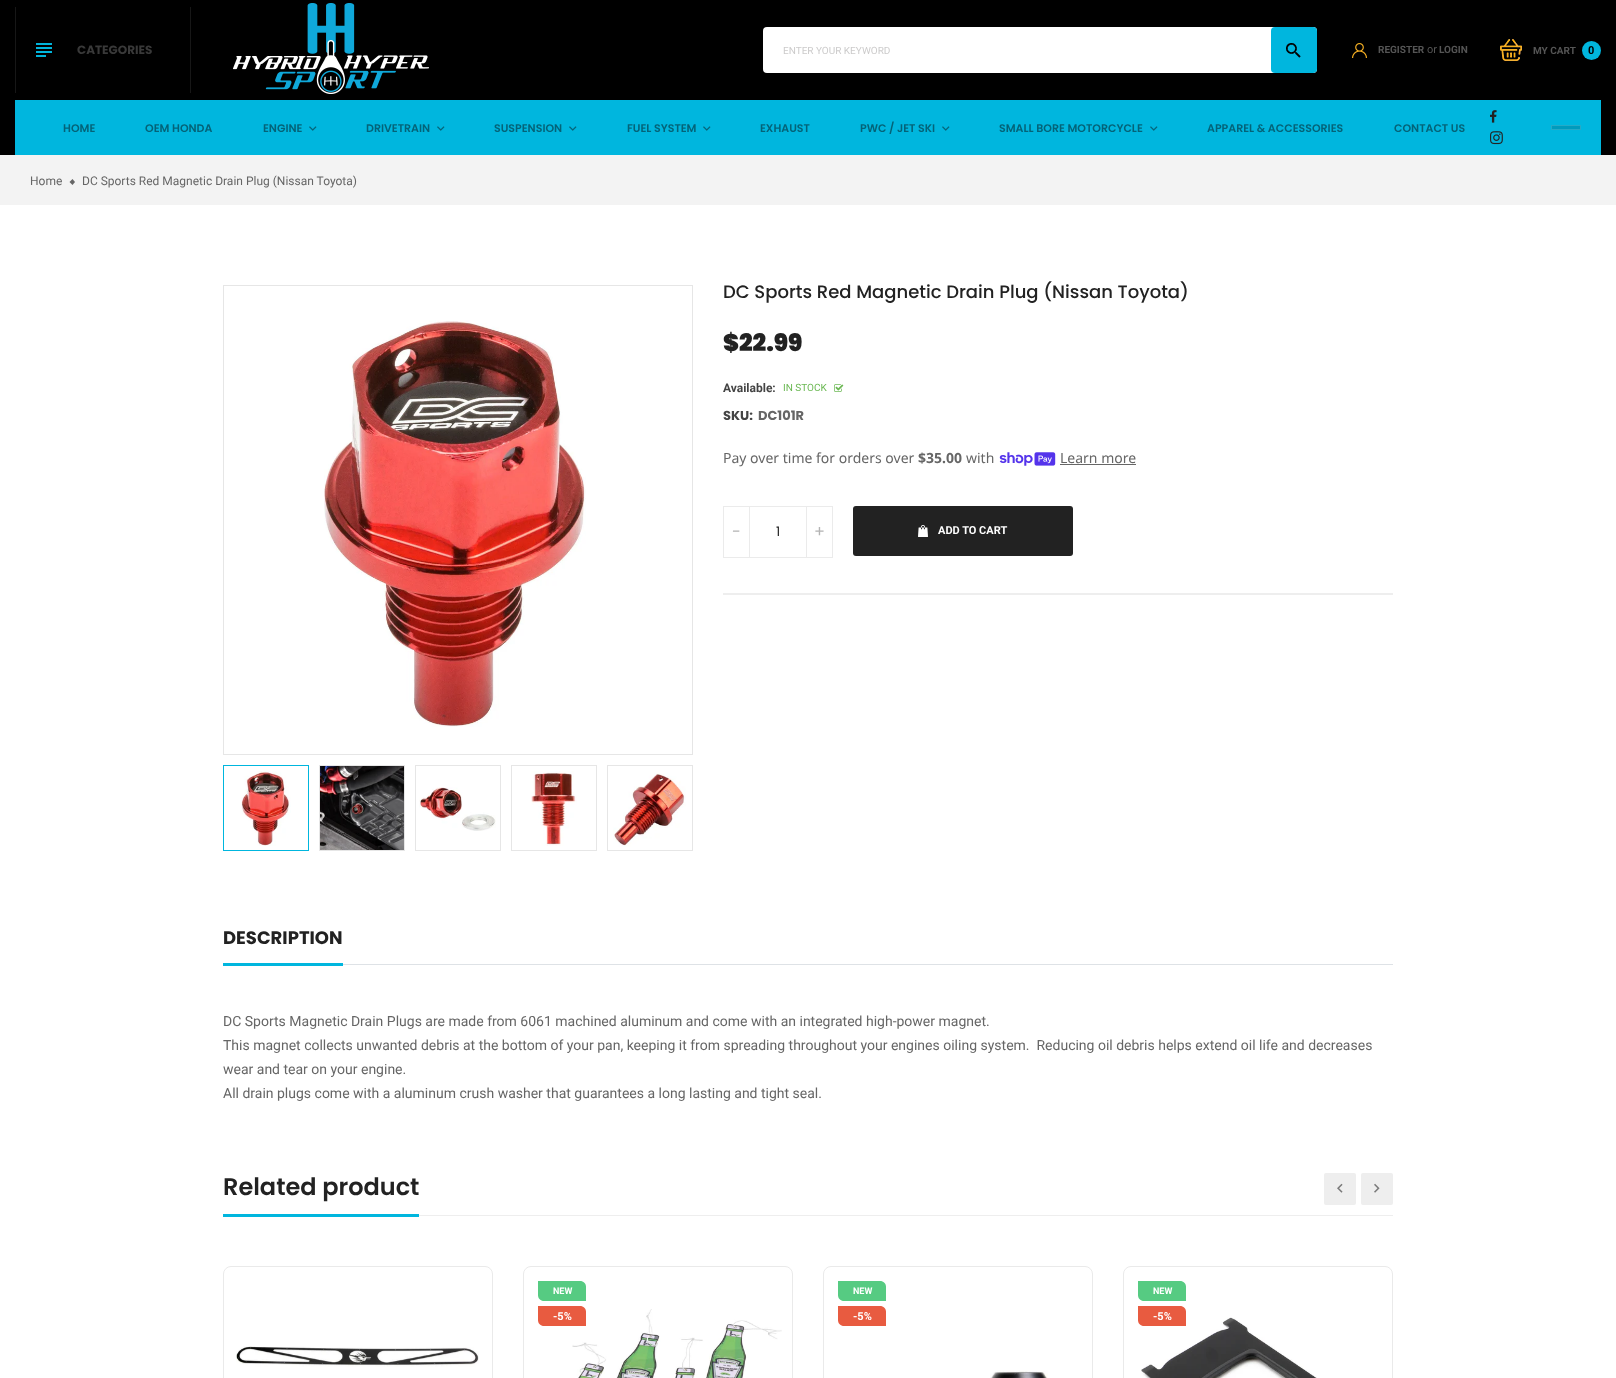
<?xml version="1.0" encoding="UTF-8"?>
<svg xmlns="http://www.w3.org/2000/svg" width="1616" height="1378">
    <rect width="100%" height="100%" fill="#FFFFFF"/>
    <rect x="0" y="0" width="1616" height="155" fill="#000000"/>
    <rect x="190" y="7" width="1" height="86" fill="#171717"/>
    <rect x="15" y="7" width="1" height="86" fill="#171717"/>
    <image x="36" y="43" width="16" height="14" href="img_01.png"/>
    <text x="77" y="54" font-family="Poppins" font-size="12" font-weight="700" fill="#393939">CATEGORIES</text>
    <image x="233" y="3" width="196" height="91" href="img_02.png"/>
    <rect x="763" y="27" width="554" height="46" rx="4" fill="#FFFFFF"/>
    <text x="783" y="54" font-family="Roboto" font-size="10" fill="#CCCBCB">ENTER YOUR KEYWORD</text>
    <rect x="1271" y="27" width="46" height="46" rx="4" fill="#00B6DE"/>
    <image x="1286" y="43" width="15" height="15" href="img_03.png"/>
    <image x="1352" y="43" width="15" height="15" href="img_04.png"/>
    <text x="1378" y="53" font-family="Roboto" font-size="10" font-weight="700" fill="#555555">REGISTER</text>
    <text x="1427" y="53" font-family="Roboto" font-size="11" fill="#555555">or</text>
    <text x="1439" y="53" font-family="Roboto" font-size="10" font-weight="700" fill="#555555">LOGIN</text>
    <image x="1500" y="39" width="22" height="22" href="img_05.png"/>
    <text x="1533" y="54" font-family="Roboto" font-size="10" font-weight="700" fill="#555555">MY CART</text>
    <circle cx="1591.5" cy="50.5" r="9.5" fill="#00B6DE"/>
    <text x="1588" y="54" font-family="Roboto" font-size="11" font-weight="700" fill="#000000">0</text>
    <rect x="15" y="100" width="1586" height="55" fill="#00B6DE"/>
    <text x="63" y="132" font-family="Poppins" font-size="11" font-weight="600" fill="#046378">HOME</text>
    <text x="145" y="132" font-family="Poppins" font-size="11" font-weight="600" fill="#046378">OEM HONDA</text>
    <text x="263" y="132" font-family="Poppins" font-size="11" font-weight="600" fill="#046378">ENGINE</text>
    <image x="309" y="126" width="8" height="5" href="img_06.png"/>
    <text x="366" y="132" font-family="Poppins" font-size="11" font-weight="600" fill="#046378">DRIVETRAIN</text>
    <image x="437" y="126" width="8" height="5" href="img_06.png"/>
    <text x="494" y="132" font-family="Poppins" font-size="11" font-weight="600" fill="#046378">SUSPENSION</text>
    <image x="569" y="126" width="8" height="5" href="img_06.png"/>
    <text x="627" y="132" font-family="Poppins" font-size="11" font-weight="600" fill="#046378">FUEL SYSTEM</text>
    <image x="703" y="126" width="8" height="5" href="img_06.png"/>
    <text x="760" y="132" font-family="Poppins" font-size="11" font-weight="600" fill="#046378">EXHAUST</text>
    <text x="860" y="132" font-family="Poppins" font-size="11" font-weight="600" fill="#046378">PWC / JET SKI</text>
    <image x="942" y="126" width="8" height="5" href="img_06.png"/>
    <text x="999" y="132" font-family="Poppins" font-size="11" font-weight="600" fill="#046378">SMALL BORE MOTORCYCLE</text>
    <image x="1150" y="126" width="8" height="5" href="img_06.png"/>
    <text x="1207" y="132" font-family="Poppins" font-size="11" font-weight="600" fill="#046378">APPAREL &amp; ACCESSORIES</text>
    <text x="1394" y="132" font-family="Poppins" font-size="11" font-weight="600" fill="#046378">CONTACT US</text>
    <image x="1490" y="110" width="7" height="13" href="img_07.png"/>
    <image x="1490" y="131" width="13" height="14" href="img_08.png"/>
    <rect x="1551.5" y="125.5" width="29" height="4" fill="#009BBD" stroke="#26AAC7"/>
    <rect x="0" y="155" width="1616" height="50" fill="#F3F3F3"/>
    <text x="30" y="185" font-family="Roboto" font-size="12" fill="#666666">Home</text>
    <path d="M 72.5 179 L 75 182 L 72.5 185 L 69.5 182 Z" fill="#666666"/>
    <text x="82" y="185" font-family="Roboto" font-size="12" fill="#666666">DC Sports Red Magnetic Drain Plug (Nissan Toyota)</text>
    <rect x="223.5" y="285.5" width="469" height="469" fill="none" stroke="#E6E6E6"/>
    <image x="324" y="320" width="262" height="407" href="img_09.png"/>
    <rect x="223.5" y="765.5" width="85" height="85" fill="none" stroke="#00B6DE"/>
    <image x="241" y="771" width="50" height="75" href="img_10.png"/>
    <rect x="319.5" y="765.5" width="85" height="85" fill="none" stroke="#E6E6E6"/>
    <image x="320" y="766" width="84" height="84" href="img_11.png"/>
    <rect x="415.5" y="765.5" width="85" height="85" fill="none" stroke="#E6E6E6"/>
    <image x="419" y="787" width="77" height="44" href="img_12.png"/>
    <rect x="511.5" y="765.5" width="85" height="85" fill="none" stroke="#E6E6E6"/>
    <image x="531" y="771" width="46" height="75" href="img_13.png"/>
    <rect x="607.5" y="765.5" width="85" height="85" fill="none" stroke="#E6E6E6"/>
    <image x="613" y="773" width="73" height="74" href="img_14.png"/>
    <text x="723" y="298" font-family="Poppins" font-size="18" font-weight="500" fill="#222222">DC Sports Red Magnetic Drain Plug (Nissan Toyota)</text>
    <text x="723" y="351" font-family="Poppins" font-size="24" font-weight="900" fill="#222222">$22.99</text>
    <text x="723" y="392" font-family="Roboto" font-size="12" font-weight="700" fill="#444444">Available:</text>
    <text x="783" y="391" font-family="Roboto" font-size="10" fill="#6BB853">IN STOCK</text>
    <image x="834" y="384" width="10" height="8" href="img_15.png"/>
    <text x="723" y="420" font-family="Poppins" font-size="13" font-weight="700" fill="#444444">SKU:</text>
    <text x="758" y="420" font-family="Poppins" font-size="13" font-weight="700" fill="#666666">DC101R</text>
    <text x="723" y="463" font-family="Noto Sans" font-size="14" fill="#666666">Pay over time for orders over</text>
    <text x="918" y="463" font-family="Noto Sans" font-size="14" font-weight="700" fill="#666666">$35.00</text>
    <text x="966" y="463" font-family="Noto Sans" font-size="14" fill="#666666">with</text>
    <image x="999" y="452" width="57" height="14" href="img_16.png"/>
    <text x="1060" y="463" font-family="Noto Sans" font-size="14" fill="#666666">Learn more</text>
    <rect x="1060" y="464" width="76" height="1" fill="#666666"/>
    <rect x="723.5" y="506.5" width="109" height="51" fill="none" stroke="#EBEBEB"/>
    <rect x="749" y="507" width="1" height="50" fill="#EBEBEB"/>
    <text x="732" y="537" font-family="Poppins" font-size="16" fill="#B4B4B4">-</text>
    <text x="776" y="536" font-family="Poppins" font-size="13" fill="#222222">1</text>
    <rect x="806" y="507" width="1" height="50" fill="#EBEBEB"/>
    <text x="814" y="537" font-family="Poppins" font-size="16" fill="#B4B4B4">+</text>
    <rect x="853" y="506" width="220" height="50" rx="3" fill="#222222"/>
    <image x="918" y="525" width="10" height="12" href="img_17.png"/>
    <text x="938" y="534" font-family="Roboto" font-size="11" font-weight="700" fill="#FFFFFF">ADD TO CART</text>
    <rect x="723" y="593" width="670" height="2" fill="#EEEEEE"/>
    <rect x="343" y="964" width="1050" height="1" fill="#DEE2E6"/>
    <text x="223" y="944" font-family="Poppins" font-size="18" font-weight="700" fill="#222222">DESCRIPTION</text>
    <rect x="223" y="963" width="120" height="3" fill="#00B6DE"/>
    <text font-family="Roboto" font-size="14" fill="#666666" xml:space="preserve"><tspan x="223" y="1026">DC Sports Magnetic Drain Plugs are made from 6061 machined aluminum and come with an integrated high-power magnet.</tspan><tspan x="223" y="1050">This magnet collects unwanted debris at the bottom of your pan, keeping it from spreading throughout your engines oiling system.  Reducing oil debris helps extend oil life and decreases</tspan><tspan x="223" y="1074">wear and tear on your engine.</tspan><tspan x="223" y="1098">All drain plugs come with a aluminum crush washer that guarantees a long lasting and tight seal.</tspan></text>
    <rect x="419" y="1215" width="974" height="1" fill="#EEEEEE"/>
    <text x="223" y="1195" font-family="Poppins" font-size="24" font-weight="600" fill="#222222">Related product</text>
    <rect x="223" y="1214" width="196" height="3" fill="#00B6DE"/>
    <rect x="1324" y="1173" width="32" height="32" rx="2" fill="#EEEEEE"/>
    <image x="1337" y="1183" width="6" height="10" href="img_18.png"/>
    <rect x="1361" y="1173" width="32" height="32" rx="2" fill="#EEEEEE"/>
    <image x="1374" y="1183" width="6" height="10" href="img_19.png"/>
    <rect x="223.5" y="1266.5" width="269" height="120" rx="7.5" fill="none" stroke="#EAEAEA"/>
    <image x="236" y="1346" width="243" height="21" href="img_20.png"/>
    <rect x="523.5" y="1266.5" width="269" height="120" rx="7.5" fill="none" stroke="#EAEAEA"/>
    <path d="M 538 1281 H 580 C 583.5 1281 586 1283.5 586 1287 V 1301 H 544 C 540.5 1301 538 1298.5 538 1295 Z" fill="#56CB82"/>
    <text x="553" y="1294" font-family="Roboto" font-size="9" font-weight="700" fill="#FFFFFF">NEW</text>
    <image x="572" y="1309" width="210" height="69" href="img_21.png"/>
    <path d="M 538 1306 H 580 C 583.5 1306 586 1308.5 586 1312 V 1326 H 544 C 540.5 1326 538 1323.5 538 1320 Z" fill="#E85B40"/>
    <text x="553" y="1320" font-family="Roboto" font-size="11" font-weight="700" fill="#FFFFFF">-5%</text>
    <rect x="823.5" y="1266.5" width="269" height="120" rx="7.5" fill="none" stroke="#EAEAEA"/>
    <path d="M 838 1281 H 880 C 883.5 1281 886 1283.5 886 1287 V 1301 H 844 C 840.5 1301 838 1298.5 838 1295 Z" fill="#56CB82"/>
    <text x="853" y="1294" font-family="Roboto" font-size="9" font-weight="700" fill="#FFFFFF">NEW</text>
    <path d="M 838 1306 H 880 C 883.5 1306 886 1308.5 886 1312 V 1326 H 844 C 840.5 1326 838 1323.5 838 1320 Z" fill="#E85B40"/>
    <text x="853" y="1320" font-family="Roboto" font-size="11" font-weight="700" fill="#FFFFFF">-5%</text>
    <image x="990" y="1370" width="58" height="8" href="img_22.png"/>
    <rect x="1123.5" y="1266.5" width="269" height="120" rx="7.5" fill="none" stroke="#EAEAEA"/>
    <path d="M 1138 1281 H 1180 C 1183.5 1281 1186 1283.5 1186 1287 V 1301 H 1144 C 1140.5 1301 1138 1298.5 1138 1295 Z" fill="#56CB82"/>
    <text x="1153" y="1294" font-family="Roboto" font-size="9" font-weight="700" fill="#FFFFFF">NEW</text>
    <image x="1141" y="1317" width="176" height="61" href="img_23.png"/>
    <path d="M 1138 1306 H 1180 C 1183.5 1306 1186 1308.5 1186 1312 V 1326 H 1144 C 1140.5 1326 1138 1323.5 1138 1320 Z" fill="#E85B40"/>
    <text x="1153" y="1320" font-family="Roboto" font-size="11" font-weight="700" fill="#FFFFFF">-5%</text>
</svg>
